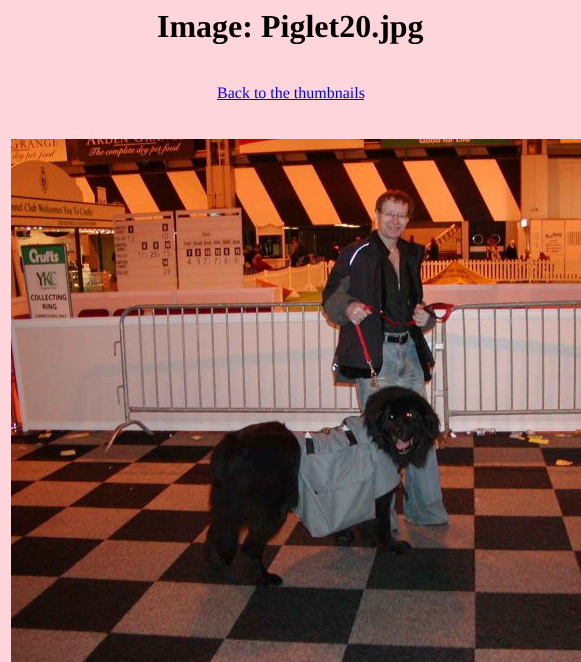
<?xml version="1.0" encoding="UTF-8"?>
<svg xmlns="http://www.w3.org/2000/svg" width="581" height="662">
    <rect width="100%" height="100%" fill="#FDD5DB"/>
    <text x="157" y="37" font-family="Liberation Serif" font-size="32" font-weight="700" fill="#000000">Image: Piglet20.jpg</text>
    <text x="217" y="98" font-family="Liberation Serif" font-size="16" fill="#0000EE">Back to the thumbnails</text>
    <rect x="217" y="99" width="147" height="1" fill="#0000EE"/>
    <image x="11" y="139" width="570" height="523" href="img_01.png"/>
</svg>
